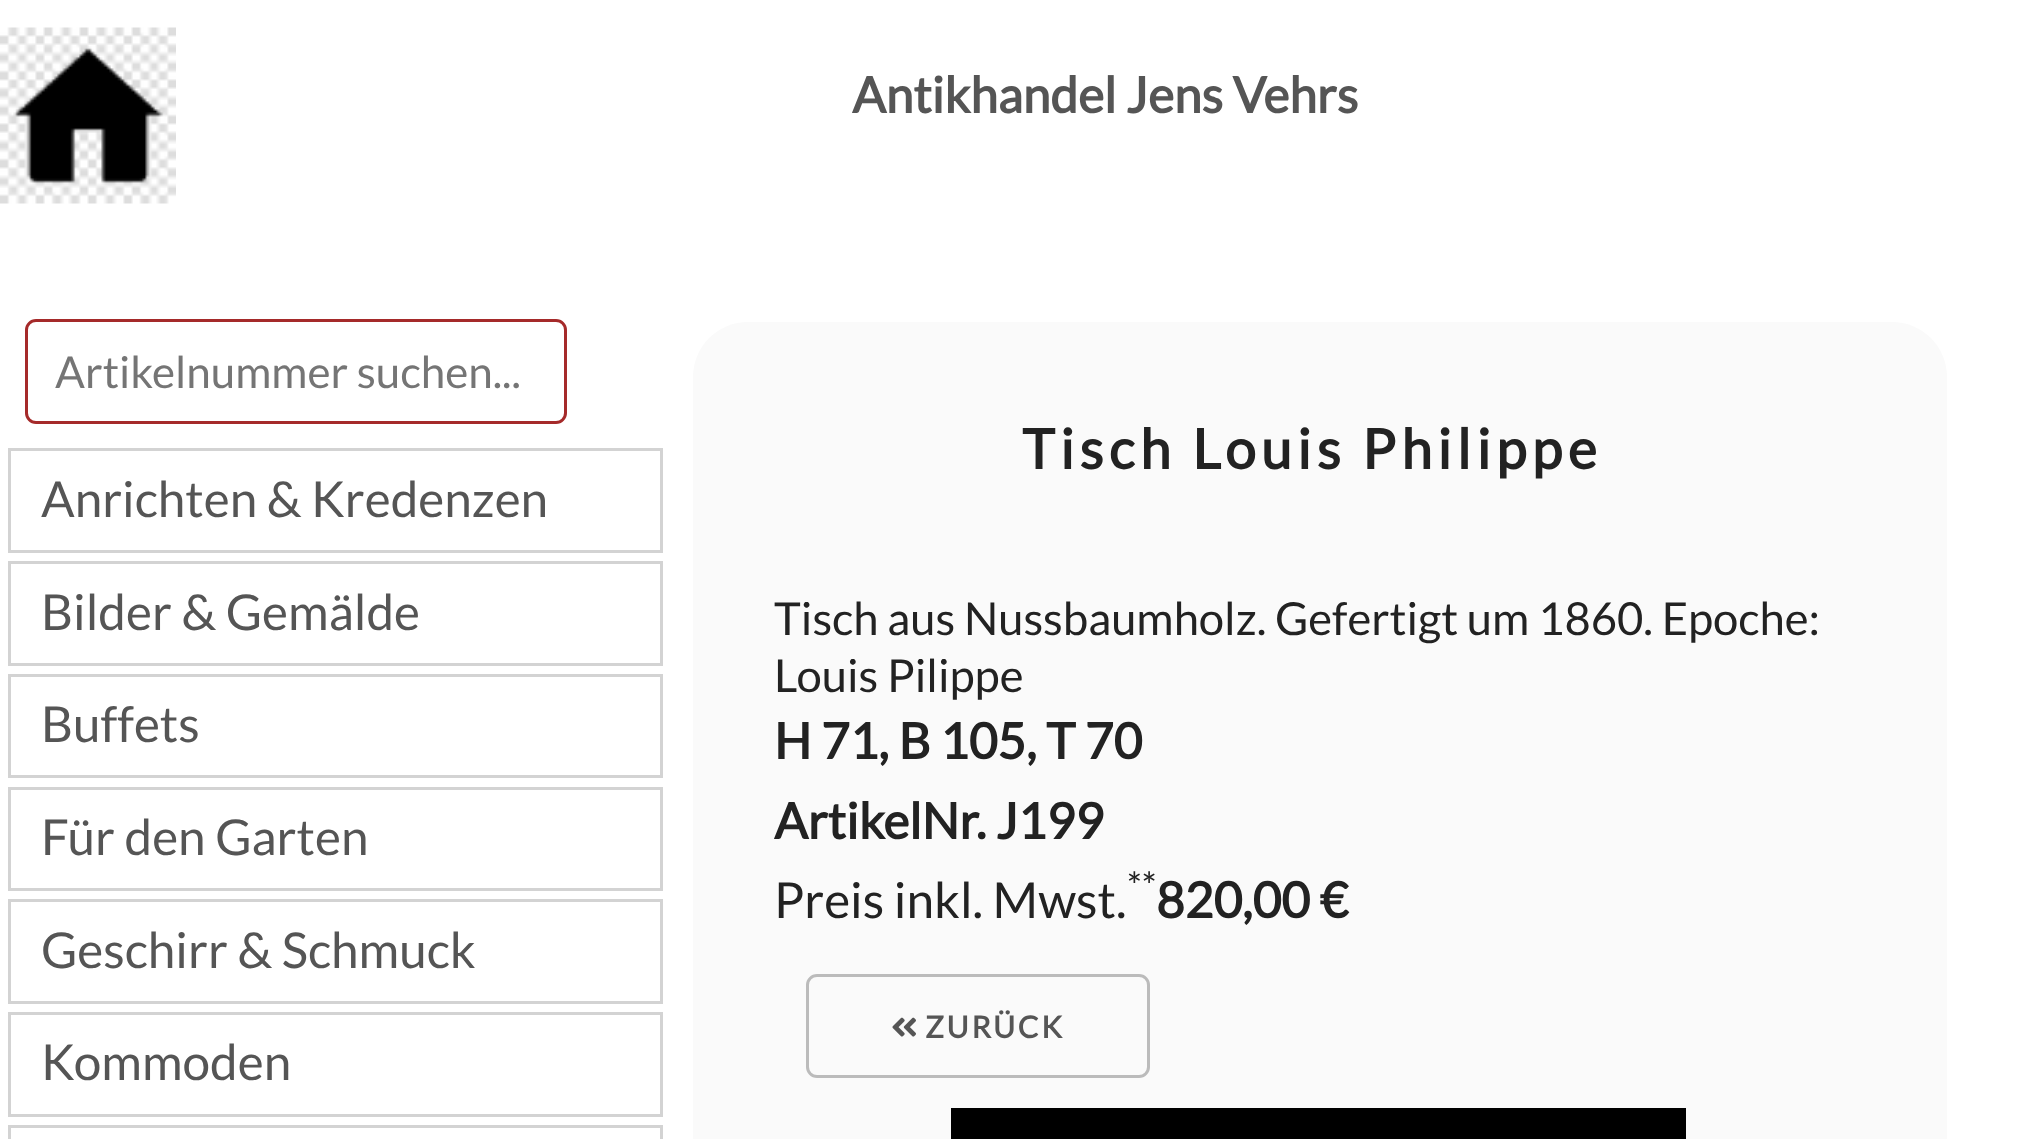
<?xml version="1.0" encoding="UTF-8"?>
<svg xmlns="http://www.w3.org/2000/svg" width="2034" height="1139">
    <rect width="100%" height="100%" fill="#FFFFFF"/>
    <image x="0" y="27" width="176" height="177" href="img_01.png"/>
    <text x="852" y="113" font-family="Lato" font-size="49.5" font-weight="700" fill="#555555">Antikhandel Jens Vehrs</text>
    <rect x="26.5" y="320.5" width="539" height="102" rx="9.5" fill="none" stroke="#A52A2A" stroke-width="3"/>
    <text x="55" y="388" font-family="Lato" font-size="44" fill="#757575">Artikelnummer suchen...</text>
    <rect x="9.5" y="449.5" width="652" height="102" fill="none" stroke="#D3D3D3" stroke-width="3"/>
    <text x="41" y="517" font-family="Lato" font-size="49.5" fill="#555555">Anrichten &amp; Kredenzen</text>
    <rect x="9.5" y="562.5" width="652" height="102" fill="none" stroke="#D3D3D3" stroke-width="3"/>
    <text x="41" y="630" font-family="Lato" font-size="49.5" fill="#555555">Bilder &amp; Gemälde</text>
    <rect x="9.5" y="675.5" width="652" height="101" fill="none" stroke="#D3D3D3" stroke-width="3"/>
    <text x="41" y="742" font-family="Lato" font-size="49.5" fill="#555555">Buffets</text>
    <rect x="9.5" y="788.5" width="652" height="101" fill="none" stroke="#D3D3D3" stroke-width="3"/>
    <text x="41" y="855" font-family="Lato" font-size="49.5" fill="#555555">Für den Garten</text>
    <rect x="9.5" y="900.5" width="652" height="102" fill="none" stroke="#D3D3D3" stroke-width="3"/>
    <text x="41" y="968" font-family="Lato" font-size="49.5" fill="#555555">Geschirr &amp; Schmuck</text>
    <rect x="9.5" y="1013.5" width="652" height="102" fill="none" stroke="#D3D3D3" stroke-width="3"/>
    <text x="41" y="1080" font-family="Lato" font-size="49.5" fill="#555555">Kommoden</text>
    <rect x="9.5" y="1126.5" width="652" height="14" fill="none" stroke="#D3D3D3" stroke-width="3"/>
    <rect x="693" y="322" width="1254" height="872" rx="55" fill="#FAFAFA"/>
    <text x="1022" y="469" font-family="Lato" font-size="55" font-weight="700" letter-spacing="5.5" fill="#222222">Tisch Louis Philippe</text>
    <text font-family="Lato" font-size="45.4" fill="#222222">
        <tspan x="774" y="635">Tisch aus Nussbaumholz. Gefertigt um 1860. Epoche:</tspan>
        <tspan x="774" y="692">Louis Pilippe</tspan>
    </text>
    <text font-family="Lato" font-size="49.5" font-weight="700" fill="#222222">
        <tspan x="774" y="759">H 71, B 105, T 70</tspan>
        <tspan x="774" y="839">ArtikelNr. J199</tspan>
    </text>
    <text x="1127" y="899" font-family="Lato" font-size="37" fill="#222222">**</text>
    <text x="774" y="918" font-family="Lato" font-size="49.5" fill="#222222">Preis inkl. Mwst.</text>
    <text x="1156" y="918" font-family="Lato" font-size="49.5" font-weight="700" fill="#222222">820,00 €</text>
    <rect x="807.5" y="975.5" width="341" height="101" rx="9.5" fill="none" stroke="#BBBBBB" stroke-width="3"/>
    <image x="892" y="1017" width="24" height="20" href="img_02.png"/>
    <text x="925" y="1038" font-family="Lato" font-size="30.25" font-weight="700" letter-spacing="2.75" fill="#555555">ZURÜCK</text>
    <rect x="951" y="1108" width="735" height="31" fill="#000000"/>
</svg>
